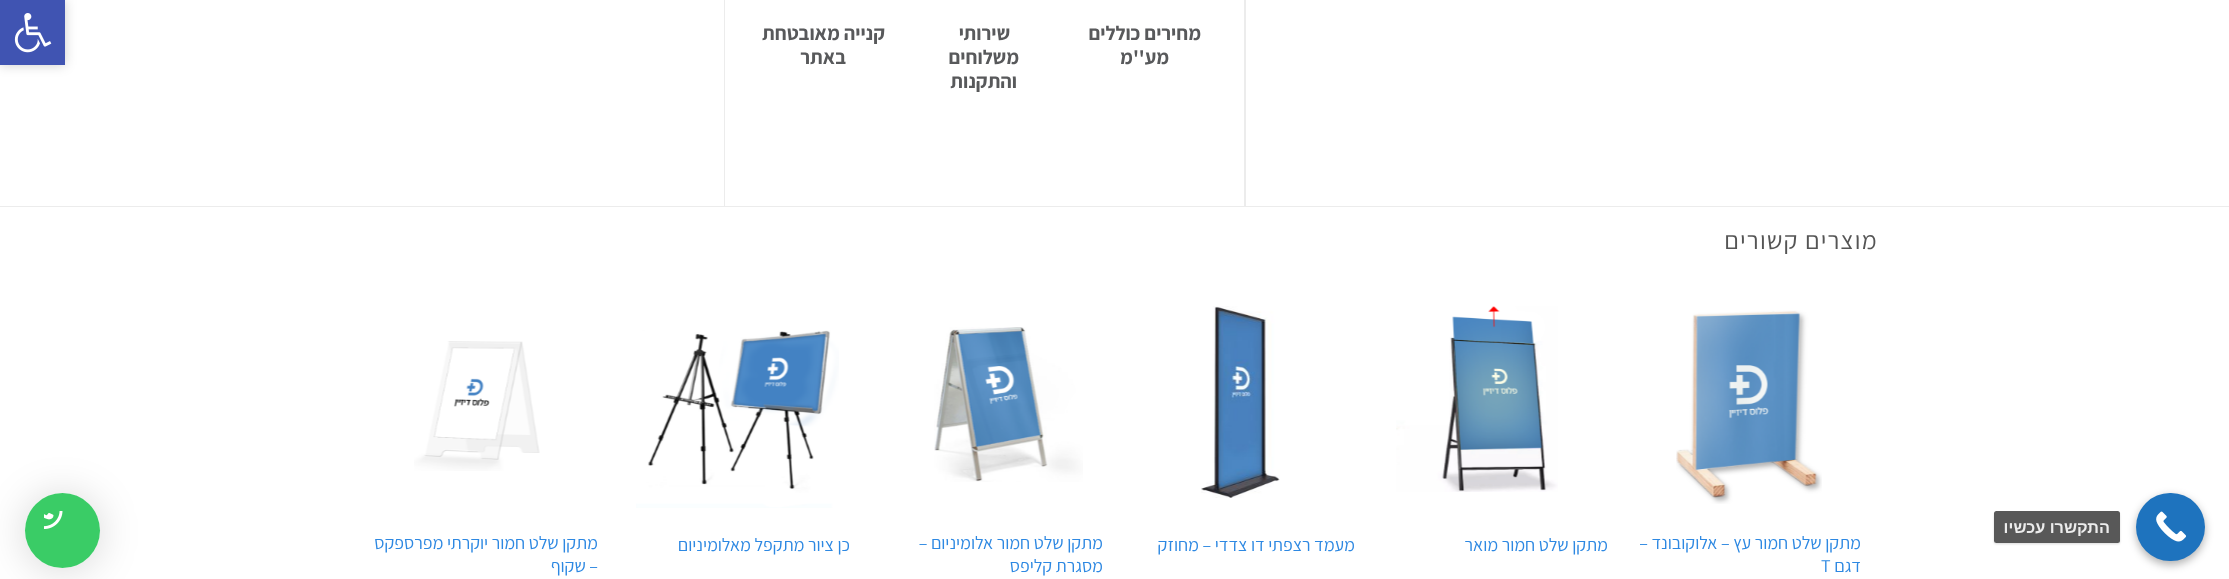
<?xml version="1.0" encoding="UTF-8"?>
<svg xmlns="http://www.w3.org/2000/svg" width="2229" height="579">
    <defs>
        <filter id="blur1" x="-50%" y="-200%" width="200%" height="500%"><feGaussianBlur stdDeviation="6"/></filter>
        <filter id="blur2" x="-50%" y="-200%" width="200%" height="500%"><feGaussianBlur stdDeviation="4"/></filter>
        <clipPath id="clip1"><path d="M 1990 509 H 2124 V 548 H 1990 Z M 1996.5 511 H 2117.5 C 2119 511 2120 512 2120 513.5 V 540.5 C 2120 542 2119 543 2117.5 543 H 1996.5 C 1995 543 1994 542 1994 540.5 V 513.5 C 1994 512 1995 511 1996.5 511 Z" clip-rule="evenodd"/></clipPath>
        <filter id="blur3" x="-50%" y="-200%" width="200%" height="500%"><feGaussianBlur stdDeviation="1"/></filter>
        <clipPath id="clip2"><path d="M 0 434 H 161 V 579 H 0 Z M 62.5 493 C 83 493 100 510 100 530.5 C 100 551 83 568 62.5 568 C 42 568 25 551 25 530.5 C 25 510 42 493 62.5 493 Z" clip-rule="evenodd"/></clipPath>
        <filter id="blur4" x="-50%" y="-200%" width="200%" height="500%"><feGaussianBlur stdDeviation="20"/></filter>
    </defs>
    <rect width="100%" height="100%" fill="#FFFFFF"/>
    <rect x="1244" y="0" width="2" height="206" fill="#ECECEC"/>
    <text x="1201" y="40" font-family="Assistant" font-size="20" font-weight="700" direction="rtl" fill="#58595B">מחירים כוללים</text>
    <text x="1169" y="64" font-family="Assistant" font-size="20" font-weight="700" direction="rtl" fill="#58595B">מע''מ</text>
    <text x="1010" y="40" font-family="Assistant" font-size="20" font-weight="700" direction="rtl" fill="#58595B">שירותי</text>
    <text x="1019" y="64" font-family="Assistant" font-size="20" font-weight="700" direction="rtl" fill="#58595B">משלוחים</text>
    <text x="1017" y="88" font-family="Assistant" font-size="20" font-weight="700" direction="rtl" fill="#58595B">והתקנות</text>
    <text x="885" y="40" font-family="Assistant" font-size="20" font-weight="700" direction="rtl" fill="#58595B">קנייה מאובטחת</text>
    <text x="846" y="64" font-family="Assistant" font-size="20" font-weight="700" direction="rtl" fill="#58595B">באתר</text>
    <rect x="724" y="0" width="1" height="206" fill="#ECECEC"/>
    <rect x="0" y="206" width="2229" height="1" fill="#ECECEC"/>
    <text x="1878" y="249" font-family="Assistant" font-size="25" letter-spacing="1.25" direction="rtl" fill="#555555">מוצרים קשורים</text>
    <image x="1676" y="310" width="146" height="194" href="img_01.png"/>
    <text font-family="Assistant" font-size="18" direction="rtl" fill="#2D88E2">
        <tspan x="1861" y="549">מתקן שלט חמור עץ – אלוקובונד –</tspan>
        <tspan x="1861" y="572">דגם</tspan>
    </text>
    <text x="1821" y="572" font-family="Assistant" font-size="18" fill="#2D88E2">T</text>
    <image x="1396" y="306" width="162" height="186" href="img_02.png"/>
    <text x="1608" y="551" font-family="Assistant" font-size="18" direction="rtl" fill="#2D88E2">מתקן שלט חמור מואר</text>
    <image x="1201" y="306" width="79" height="192" href="img_03.png"/>
    <text x="1355" y="551" font-family="Assistant" font-size="18" direction="rtl" fill="#2D88E2">מעמד רצפתי דו צדדי – מחוזק</text>
    <image x="934" y="327" width="149" height="155" href="img_04.png"/>
    <text font-family="Assistant" font-size="18" direction="rtl" fill="#2D88E2">
        <tspan x="1103" y="549">מתקן שלט חמור אלומיניום –</tspan>
        <tspan x="1103" y="572">מסגרת קליפס</tspan>
    </text>
    <image x="636" y="330" width="203" height="178" href="img_05.png"/>
    <text x="850" y="551" font-family="Assistant" font-size="18" direction="rtl" fill="#2D88E2">כן ציור מתקפל מאלומיניום</text>
    <image x="414" y="341" width="126" height="130" href="img_06.png"/>
    <text font-family="Assistant" font-size="18" direction="rtl" fill="#2D88E2">
        <tspan x="598" y="549">מתקן שלט חמור יוקרתי מפרספקס</tspan>
        <tspan x="598" y="572">– שקוף</tspan>
    </text>
    <rect x="0" y="0" width="65" height="65" fill="#000000" fill-opacity="0.2" filter="url(#blur1)"/>
    <rect x="0" y="0" width="65" height="65" fill="#4054B2"/>
    <image x="14" y="13" width="38" height="40" href="img_07.png"/>
    <rect x="2136" y="496" width="69" height="69" rx="34.5" fill="#000000" fill-opacity="0.3" filter="url(#blur2)"/>
    <rect x="2136" y="493" width="69" height="68" rx="34" fill="#1E73BE"/>
    <image x="2156" y="511" width="31" height="31" href="img_08.png"/>
    <g clip-path="url(#clip1)">
        <rect x="1994" y="513" width="126" height="31" rx="2.5" fill="#000000" fill-opacity="0.15" filter="url(#blur3)"/>
    </g>
    <rect x="1994" y="511" width="126" height="32" rx="2.5" fill="#464646" fill-opacity="0.9"/>
    <text x="2110" y="533" font-family="Liberation Sans" font-size="16.25" font-weight="700" direction="rtl" fill="#ECECEC">התקשרו עכשיו</text>
    <g clip-path="url(#clip2)">
        <rect x="25" y="495" width="75" height="75" rx="37.5" fill="#000000" fill-opacity="0.16" filter="url(#blur4)"/>
    </g>
    <circle cx="62.5" cy="530.5" r="37.5" fill="#25C655" fill-opacity="0.9"/>
    <image x="44" y="511" width="19" height="18" href="img_09.png"/>
</svg>
